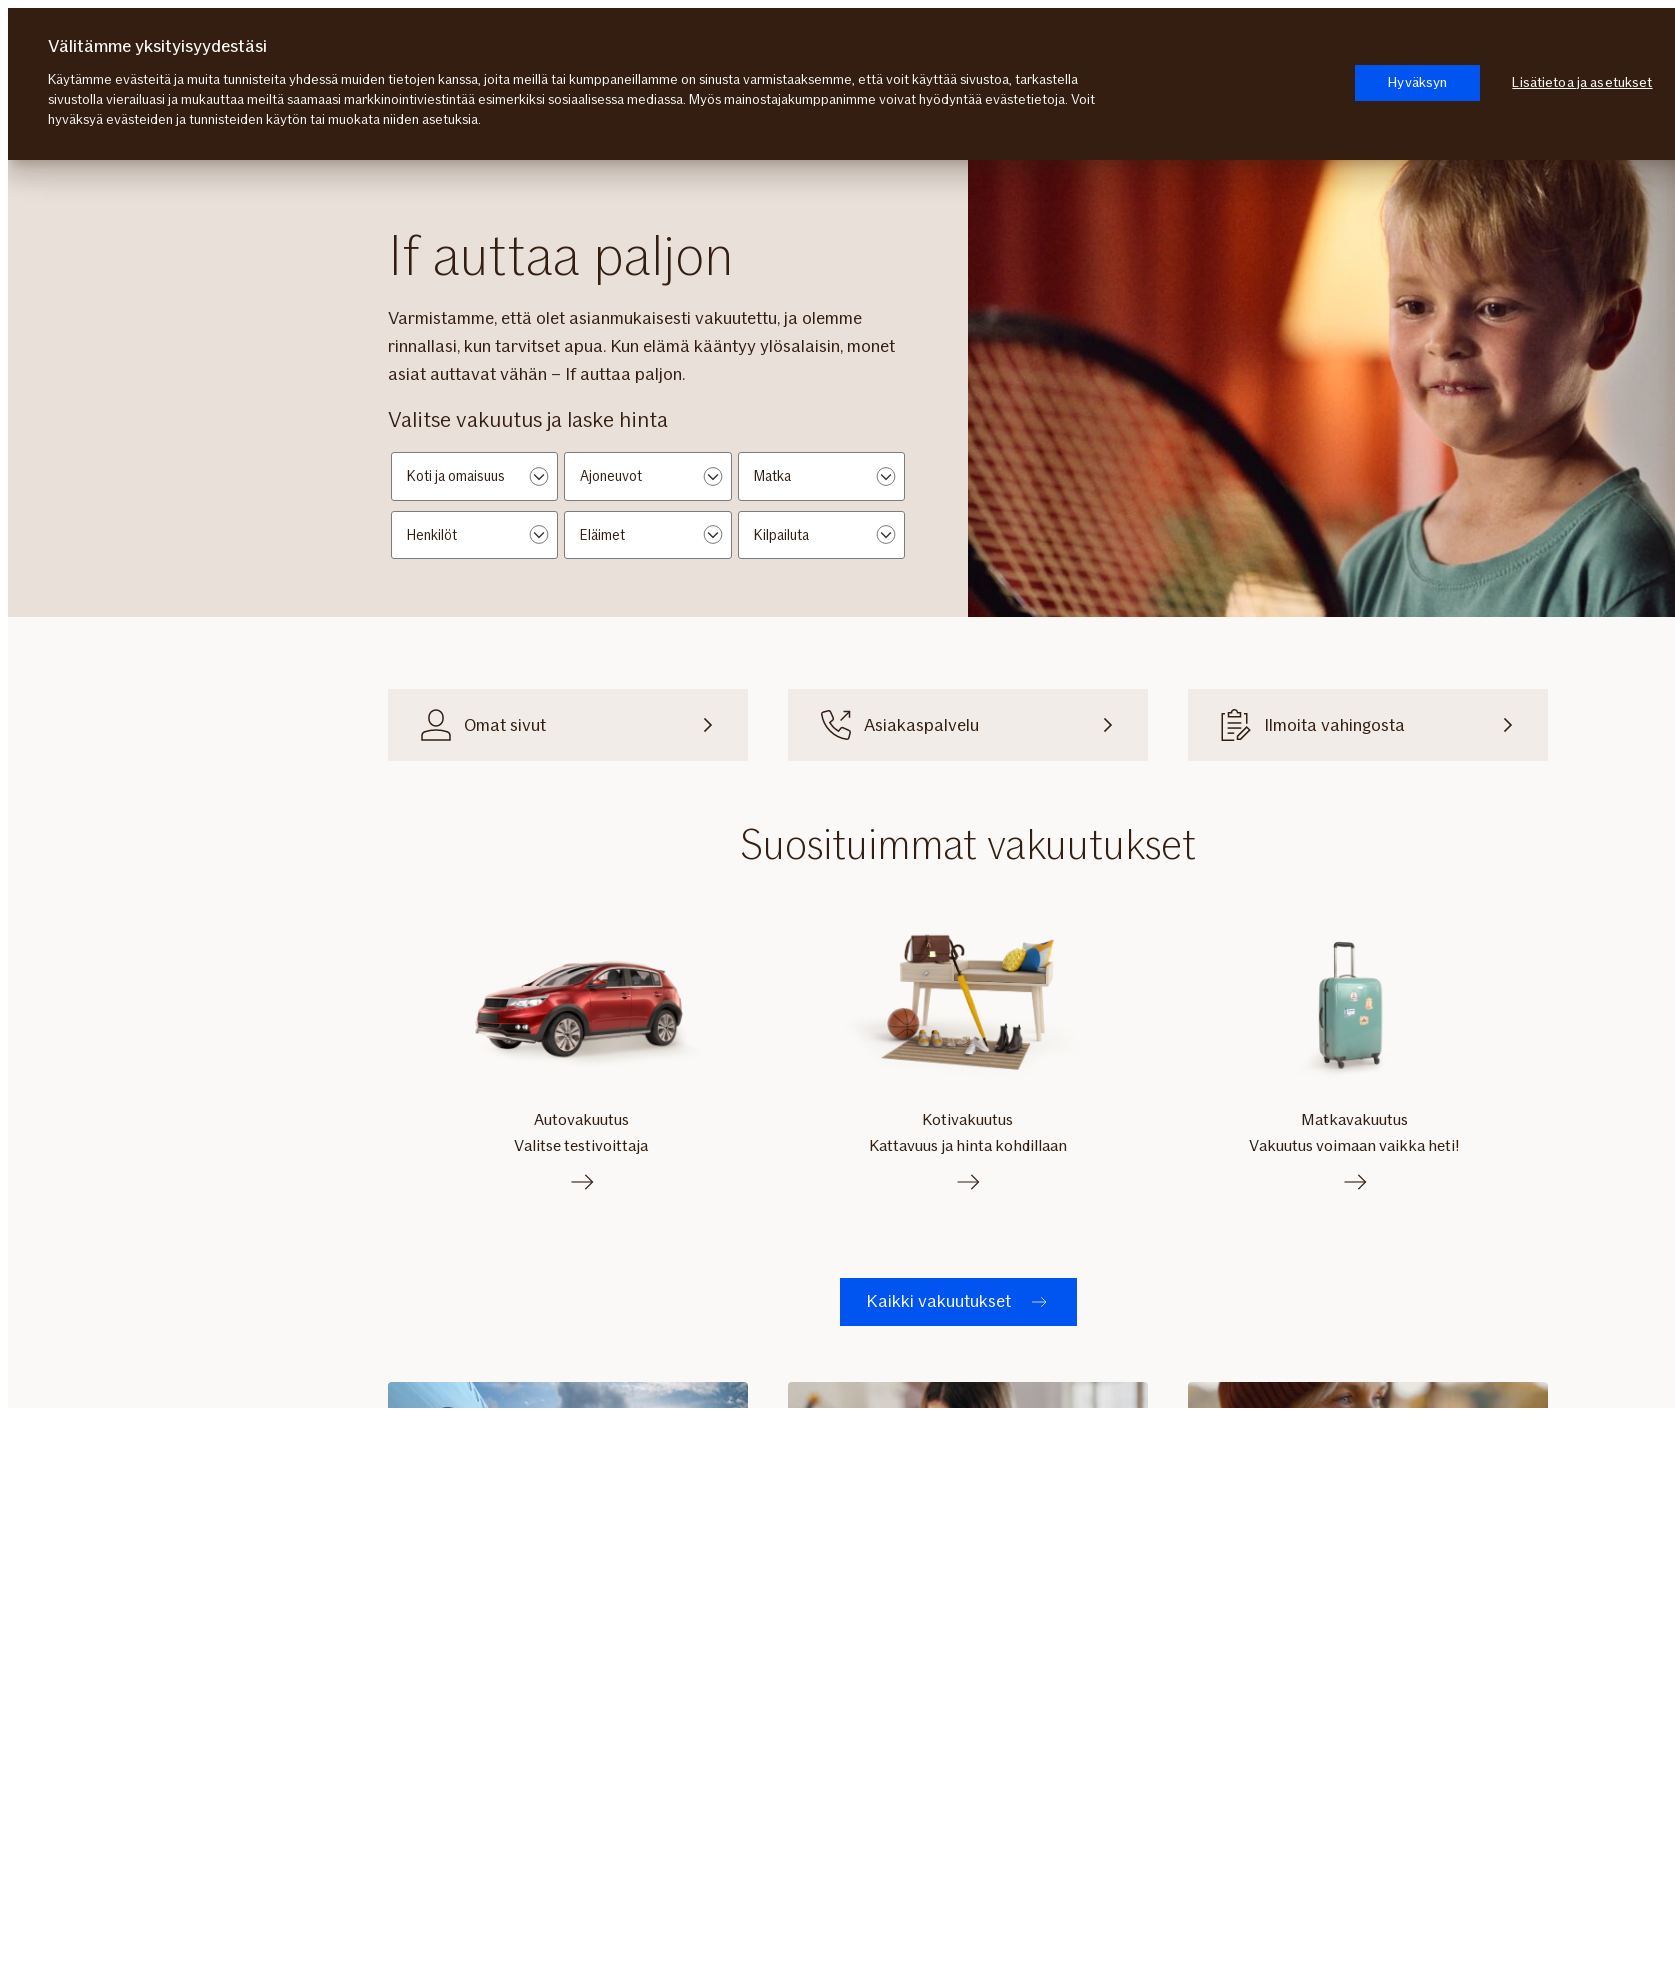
<?xml version="1.0" encoding="UTF-8"?>
<svg xmlns="http://www.w3.org/2000/svg" width="1675" height="1981">
    <rect width="100%" height="100%" fill="#FFFFFF"/>
    <image x="8" y="8" width="1667" height="1400" href="img_01.png"/>
</svg>
